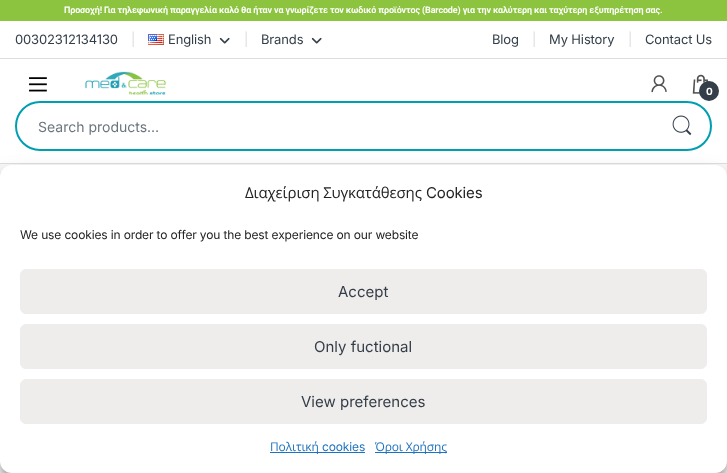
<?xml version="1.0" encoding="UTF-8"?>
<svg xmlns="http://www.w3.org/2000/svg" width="727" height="473">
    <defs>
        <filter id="blur1" x="-50%" y="-200%" width="200%" height="500%"><feGaussianBlur stdDeviation="3"/></filter>
        <filter id="blur2" x="-50%" y="-200%" width="200%" height="500%"><feGaussianBlur stdDeviation="10"/></filter>
    </defs>
    <rect width="100%" height="100%" fill="#FFFFFF"/>
    <rect x="0" y="0" width="727" height="21" fill="#8CC440"/>
    <text x="64" y="13" font-family="Roboto" font-size="9" font-weight="700" letter-spacing="-0.14" fill="#FFFFFF">Προσοχή! Για τηλεφωνική παραγγελία καλό θα ήταν να γνωρίζετε τον κωδικό προϊόντος (Barcode) για την καλύτερη και ταχύτερη εξυπηρέτηση σας.</text>
    <rect x="0" y="58" width="727" height="1" fill="#DDDDDD"/>
    <text x="15" y="44" font-family="Inter" font-size="13" letter-spacing="-0.14" fill="#333E48">00302312134130</text>
    <text x="131" y="44" font-family="Inter" font-size="13" letter-spacing="-0.14" fill="#DDDDDD">|</text>
    <image x="148" y="34" width="16" height="11" href="img_01.png"/>
    <text x="168" y="44" font-family="Inter" font-size="13" letter-spacing="-0.14" fill="#333E48">English</text>
    <image x="219" y="37" width="11" height="7" href="img_02.png"/>
    <text x="244" y="44" font-family="Inter" font-size="13" letter-spacing="-0.14" fill="#DDDDDD">|</text>
    <text x="261" y="44" font-family="Inter" font-size="13" letter-spacing="-0.14" fill="#333E48">Brands</text>
    <image x="311" y="37" width="11" height="7" href="img_02.png"/>
    <text x="492" y="44" font-family="Inter" font-size="13" letter-spacing="-0.14" fill="#333E48">Blog</text>
    <text x="532" y="44" font-family="Inter" font-size="13" letter-spacing="-0.14" fill="#DDDDDD">|</text>
    <text x="549" y="44" font-family="Inter" font-size="13" letter-spacing="-0.14" fill="#333E48">My History</text>
    <text x="628" y="44" font-family="Inter" font-size="13" letter-spacing="-0.14" fill="#DDDDDD">|</text>
    <text x="645" y="44" font-family="Inter" font-size="13" letter-spacing="-0.14" fill="#333E48">Contact Us</text>
    <rect x="0" y="163" width="727" height="1" fill="#DDDDDD"/>
    <image x="29" y="77" width="18" height="15" href="img_03.png"/>
    <image x="85" y="71" width="81" height="24" href="img_04.png"/>
    <image x="651" y="75" width="16" height="18" href="img_05.png"/>
    <image x="692" y="74" width="17" height="20" href="img_06.png"/>
    <circle cx="709" cy="91" r="10" fill="#333E48"/>
    <text x="706" y="95" font-family="Inter" font-size="10" font-weight="700" letter-spacing="-0.14" fill="#FFFFFF">0</text>
    <rect x="16" y="102" width="695" height="48" rx="24" fill="none" stroke="#009EB1" stroke-width="2"/>
    <text x="38" y="132" font-family="Inter" font-size="14" fill="#6C757D">Search products…</text>
    <image x="672" y="115" width="20" height="21" href="img_07.png"/>
    <rect x="0" y="164" width="727" height="13" fill="#F7F7F7"/>
    <rect x="0" y="171" width="727" height="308" rx="12" fill="#000000" fill-opacity="0.23" filter="url(#blur1)"/>
    <rect x="0" y="175" width="727" height="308" rx="12" fill="#000000" fill-opacity="0.19" filter="url(#blur2)"/>
    <rect x="0" y="165" width="727" height="308" rx="12" fill="#FFFFFF"/>
    <text x="245" y="198" font-family="Open Sans" font-size="15" letter-spacing="-0.14" fill="#222222">Διαχείριση Συγκατάθεσης</text>
    <text x="426" y="198" font-family="Inter" font-size="15" letter-spacing="-0.14" fill="#222222">Cookies</text>
    <text x="20" y="239" font-family="Inter" font-size="12" letter-spacing="-0.14" fill="#222222">We use cookies in order to offer you the best experience on our website</text>
    <rect x="20.5" y="269.5" width="686" height="44" rx="5.5" fill="#EFECEC" stroke="#EFECEC"/>
    <text x="338" y="297" font-family="Inter" font-size="15" fill="#333E48">Accept</text>
    <rect x="20.5" y="324.5" width="686" height="44" rx="5.5" fill="#EFECEC" stroke="#EFECEC"/>
    <text x="314" y="352" font-family="Inter" font-size="15" fill="#333E48">Only fuctional</text>
    <rect x="20.5" y="379.5" width="686" height="44" rx="5.5" fill="#EFECEC" stroke="#EFECEC"/>
    <text x="301" y="407" font-family="Inter" font-size="15" fill="#333E48">View preferences</text>
    <rect x="270" y="452" width="95" height="1" fill="#1E73BE"/>
    <text x="270" y="451" font-family="Open Sans" font-size="12" letter-spacing="-0.14" fill="#1E73BE">Πολιτική</text>
    <text x="322" y="451" font-family="Inter" font-size="12" letter-spacing="-0.14" fill="#1E73BE">cookies</text>
    <rect x="375" y="452" width="72" height="1" fill="#1E73BE"/>
    <text x="375" y="451" font-family="Open Sans" font-size="12" letter-spacing="-0.14" fill="#1E73BE">Όροι Χρήσης</text>
</svg>
